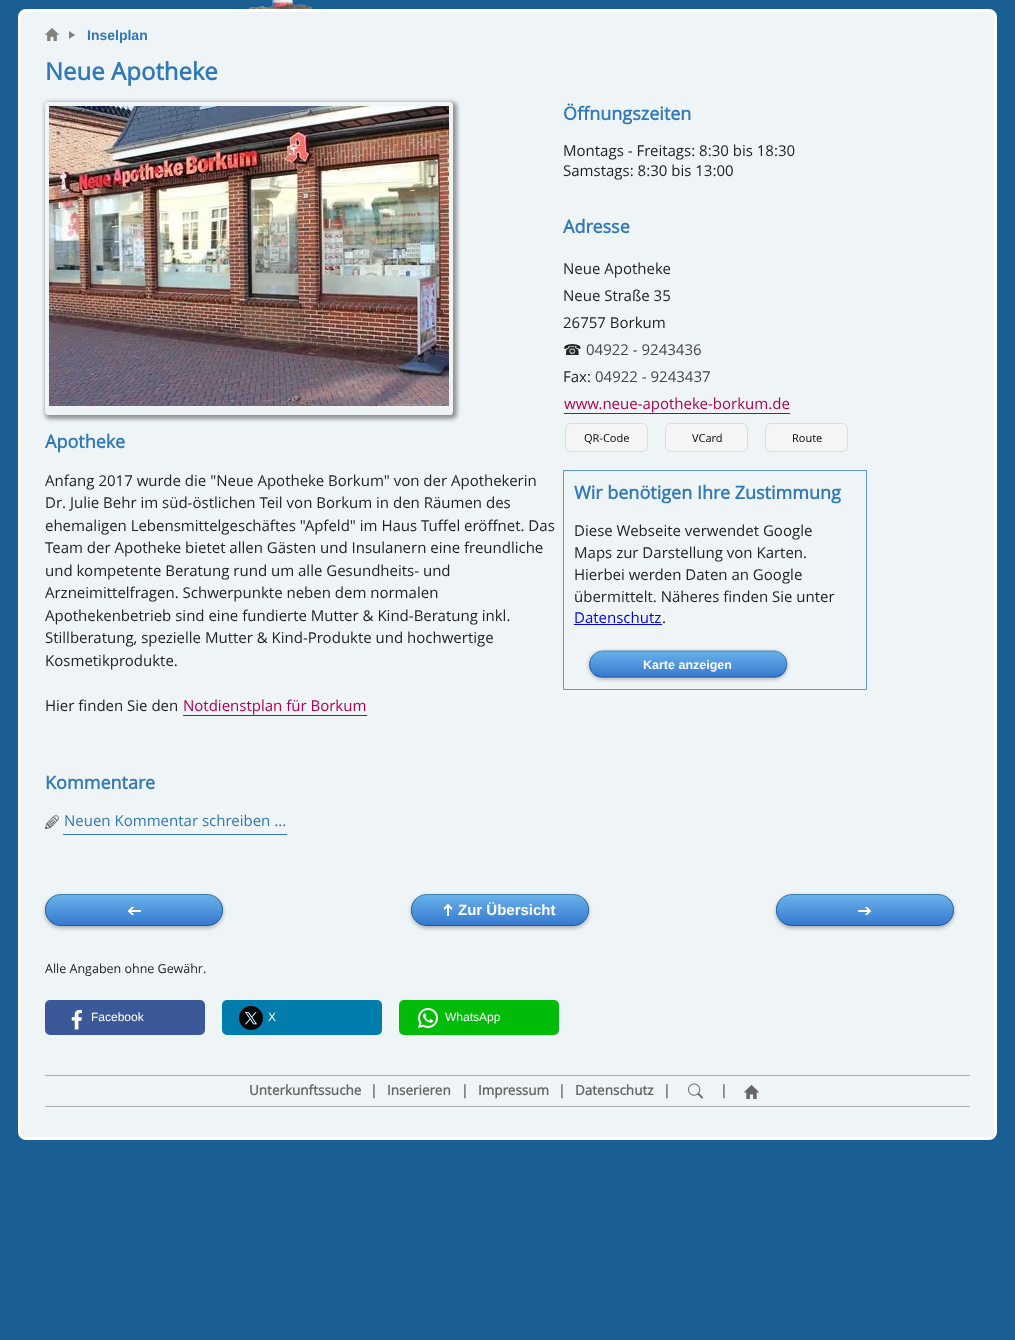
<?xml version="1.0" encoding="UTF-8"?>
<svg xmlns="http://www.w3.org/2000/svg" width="1015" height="1340">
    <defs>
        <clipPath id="clip1"><path d="M 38 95 H 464 V 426 H 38 Z M 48 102 H 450 C 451.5 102 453 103.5 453 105 V 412 C 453 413.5 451.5 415 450 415 H 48 C 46.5 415 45 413.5 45 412 V 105 C 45 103.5 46.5 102 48 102 Z" clip-rule="evenodd"/></clipPath>
        <filter id="blur1" x="-50%" y="-200%" width="200%" height="500%"><feGaussianBlur stdDeviation="2"/></filter>
        <clipPath id="clip2"><rect x="589" y="651" width="198" height="27" rx="13.5"/></clipPath>
        <linearGradient id="g1" gradientUnits="userSpaceOnUse" x1="688" y1="677" x2="688" y2="651"><stop offset="0" stop-color="#377AD0"/><stop offset="1" stop-color="#68B1EA"/></linearGradient>
        <linearGradient id="g2" gradientUnits="userSpaceOnUse" x1="688" y1="702" x2="688" y2="677"><stop offset="0" stop-color="#377AD0"/><stop offset="1" stop-color="#68B1EA"/></linearGradient>
    </defs>
    <rect width="100%" height="100%" fill="#1A5F94"/>
    <image x="249" y="0" width="63" height="9" href="img_01.png"/>
    <rect x="19.5" y="10.5" width="976" height="1128" rx="6.5" fill="#EFF4F7" stroke="#FFFFFF" stroke-width="3"/>
    <image x="45" y="28" width="14" height="13" href="img_02.png"/>
    <path d="M 69 39 V 31 L 75 35 Z" fill="#80807E"/>
    <text x="87" y="40" font-family="Liberation Sans" font-size="14" font-weight="700" fill="#3078B7">Inselplan</text>
    <text x="45" y="80" font-family="Open Sans" font-size="24" font-weight="700" fill="#3078B7">Neue Apotheke</text>
    <g clip-path="url(#clip1)">
        <rect x="45" y="102" width="412" height="317" rx="5" fill="#000000" fill-opacity="0.4" filter="url(#blur1)"/>
    </g>
    <image x="49" y="106" width="400" height="300" href="img_03.png"/>
    <text x="45" y="448" font-family="Open Sans" font-size="18" font-weight="700" fill="#3078B7">Apotheke</text>
    <text font-family="Open Sans" font-size="15" fill="#222222">
        <tspan x="45" y="486">Anfang 2017 wurde die "Neue Apotheke Borkum" von der Apothekerin</tspan>
        <tspan x="45" y="508">Dr. Julie Behr im süd-östlichen Teil von Borkum in den Räumen des</tspan>
        <tspan x="45" y="531">ehemaligen Lebensmittelgeschäftes "Apfeld" im Haus Tuffel eröffnet. Das</tspan>
        <tspan x="45" y="553">Team der Apotheke bietet allen Gästen und Insulanern eine freundliche</tspan>
        <tspan x="45" y="576">und kompetente Beratung rund um alle Gesundheits- und</tspan>
        <tspan x="45" y="598">Arzneimittelfragen. Schwerpunkte neben dem normalen</tspan>
        <tspan x="45" y="621">Apothekenbetrieb sind eine fundierte Mutter &amp; Kind-Beratung inkl.</tspan>
        <tspan x="45" y="643">Stillberatung, spezielle Mutter &amp; Kind-Produkte und hochwertige</tspan>
        <tspan x="45" y="666">Kosmetikprodukte.</tspan>
    </text>
    <text x="45" y="711" font-family="Open Sans" font-size="15" fill="#222222">Hier finden Sie den</text>
    <text x="183" y="711" font-family="Open Sans" font-size="15" fill="#B00050">Notdienstplan für Borkum</text>
    <rect x="183" y="715" width="184" height="1" fill="#B00050"/>
    <text x="563" y="120" font-family="Open Sans" font-size="18" font-weight="700" fill="#3078B7">Öffnungszeiten</text>
    <text font-family="Open Sans" font-size="15" fill="#222222">
        <tspan x="563" y="156">Montags - Freitags: 8:30 bis 18:30</tspan>
        <tspan x="563" y="176">Samstags: 8:30 bis 13:00</tspan>
    </text>
    <text x="563" y="233" font-family="Open Sans" font-size="18" font-weight="700" fill="#3078B7">Adresse</text>
    <text font-family="Open Sans" font-size="15" fill="#222222">
        <tspan x="563" y="274">Neue Apotheke</tspan>
        <tspan x="563" y="301">Neue Straße 35</tspan>
        <tspan x="563" y="328">26757 Borkum</tspan>
    </text>
    <text x="563" y="355" font-family="DejaVu Sans" font-size="15" fill="#222222">☎</text>
    <text x="586" y="355" font-family="Open Sans" font-size="15" fill="#444444">04922 - 9243436</text>
    <text x="563" y="382" font-family="Open Sans" font-size="15" fill="#222222">Fax:</text>
    <text x="595" y="382" font-family="Open Sans" font-size="15" fill="#444444">04922 - 9243437</text>
    <text x="564" y="409" font-family="Open Sans" font-size="15" fill="#B00050">www.neue-apotheke-borkum.de</text>
    <rect x="564" y="413" width="226" height="1" fill="#B00050"/>
    <rect x="565.5" y="423.5" width="82" height="28" rx="5.5" fill="#F5F5F5" stroke="#DADCE0"/>
    <text x="584" y="442" font-family="Open Sans" font-size="11" fill="#000000">QR-Code</text>
    <rect x="665.5" y="423.5" width="82" height="28" rx="5.5" fill="#F5F5F5" stroke="#DADCE0"/>
    <text x="692" y="442" font-family="Open Sans" font-size="11" fill="#000000">VCard</text>
    <rect x="765.5" y="423.5" width="82" height="28" rx="5.5" fill="#F5F5F5" stroke="#DADCE0"/>
    <text x="792" y="442" font-family="Open Sans" font-size="11" fill="#000000">Route</text>
    <rect x="563.5" y="470.5" width="303" height="219" fill="none" stroke="#6495ED"/>
    <text x="574" y="499" font-family="Open Sans" font-size="18" font-weight="700" fill="#3078B7">Wir benötigen Ihre Zustimmung</text>
    <text font-family="Open Sans" font-size="15" fill="#222222">
        <tspan x="574" y="536">Diese Webseite verwendet Google</tspan>
        <tspan x="574" y="558">Maps zur Darstellung von Karten.</tspan>
        <tspan x="574" y="580">Hierbei werden Daten an Google</tspan>
        <tspan x="574" y="602">übermittelt. Näheres finden Sie unter</tspan>
    </text>
    <text x="574" y="623" font-family="Open Sans" font-size="15" fill="#0000EE">Datenschutz</text>
    <rect x="574" y="624" width="88" height="1" fill="#0000EE"/>
    <text x="662" y="623" font-family="Open Sans" font-size="15" fill="#222222">.</text>
    <rect x="589" y="652" width="198" height="27" rx="13.5" fill="#000000" fill-opacity="0.3" filter="url(#blur1)"/>
    <g clip-path="url(#clip2)">
        <path d="M 602.5 651 H 773.5 C 781 651 787 657 787 664.5 V 677 H 589 V 664.5 C 589 657 595 651 602.5 651 Z" fill="url(#g1)"/>
        <rect x="589" y="677" width="198" height="1" fill="url(#g2)"/>
    </g>
    <path d="M 593.5 655 C 596 652.5 599.5 651 603 651 H 774 C 777.5 651 780.5 652.5 783 655" fill="none" stroke="#4081AF" stroke-width="0.9"/>
    <path d="M 783 655 C 788 660 788 668 783 673.5" fill="none" stroke="#2E69A3" stroke-width="0.9"/>
    <path d="M 783 673.5 C 780.5 675.5 777.5 677 774 677 H 603 C 599.5 677 596 675.5 593.5 673.5" fill="none" stroke="#20559A" stroke-width="0.9"/>
    <path d="M 593.5 673.5 C 588.5 668 588.5 660 593.5 655" fill="none" stroke="#2E69A3" stroke-width="0.9"/>
    <text x="643" y="669" font-family="Liberation Sans" font-size="12.5" font-weight="700" fill="#FFFFFF">Karte anzeigen</text>
    <text x="45" y="789" font-family="Open Sans" font-size="18" font-weight="700" fill="#3078B7">Kommentare</text>
    <image x="45" y="815" width="14" height="14" href="img_04.png"/>
    <text x="64" y="826" font-family="Open Sans" font-size="15" fill="#3078B7">Neuen Kommentar schreiben ...</text>
    <rect x="63" y="834" width="224" height="1" fill="#3078B7"/>
    <rect x="45" y="896" width="178" height="32" rx="16" fill="#000000" fill-opacity="0.3" filter="url(#blur1)"/>
    <image x="45" y="895" width="178" height="30" href="img_05.png"/>
    <path d="M 50 899 C 53 896 57 894.5 61 894.5 H 207 C 211 894.5 215 896 218 899" fill="none" stroke="#4081AF"/>
    <path d="M 218 899 C 224 905 224 915 218 921" fill="none" stroke="#2E69A3"/>
    <path d="M 218 921 C 215 924 211 925.5 207 925.5 H 61 C 57 925.5 53 924 50 921" fill="none" stroke="#20559A"/>
    <path d="M 50 921 C 44 915 44 905 50 899" fill="none" stroke="#2E69A3"/>
    <image x="128" y="907" width="13" height="8" href="img_06.png"/>
    <rect x="411" y="896" width="178" height="32" rx="16" fill="#000000" fill-opacity="0.3" filter="url(#blur1)"/>
    <image x="411" y="895" width="178" height="30" href="img_07.png"/>
    <path d="M 416 899 C 419 896 423 894.5 427 894.5 H 573 C 577 894.5 581 896 584 899" fill="none" stroke="#4081AF"/>
    <path d="M 584 899 C 590 905 590 915 584 921" fill="none" stroke="#2E69A3"/>
    <path d="M 584 921 C 581 924 577 925.5 573 925.5 H 427 C 423 925.5 419 924 416 921" fill="none" stroke="#20559A"/>
    <path d="M 416 921 C 410 915 410 905 416 899" fill="none" stroke="#2E69A3"/>
    <image x="444" y="904" width="8" height="12" href="img_08.png"/>
    <text x="458" y="915" font-family="Liberation Sans" font-size="15" font-weight="700" fill="#FFFFFF">Zur Übersicht</text>
    <rect x="776" y="896" width="178" height="32" rx="16" fill="#000000" fill-opacity="0.3" filter="url(#blur1)"/>
    <image x="776" y="895" width="178" height="30" href="img_09.png"/>
    <path d="M 781 899 C 784 896 788 894.5 792 894.5 H 938 C 942 894.5 946 896 949 899" fill="none" stroke="#4081AF"/>
    <path d="M 949 899 C 955 905 955 915 949 921" fill="none" stroke="#2E69A3"/>
    <path d="M 949 921 C 946 924 942 925.5 938 925.5 H 792 C 788 925.5 784 924 781 921" fill="none" stroke="#20559A"/>
    <path d="M 781 921 C 775 915 775 905 781 899" fill="none" stroke="#2E69A3"/>
    <image x="858" y="907" width="13" height="8" href="img_10.png"/>
    <text x="45" y="973" font-family="Open Sans" font-size="12.5" fill="#222222">Alle Angaben ohne Gewähr.</text>
    <rect x="45" y="1000" width="160" height="35" rx="5" fill="#3B5998"/>
    <image x="71" y="1010" width="11" height="20" href="img_11.png"/>
    <text x="91" y="1021" font-family="Liberation Sans" font-size="12" fill="#FFFFFF">Facebook</text>
    <rect x="222" y="1000" width="160" height="35" rx="5" fill="#007DAD"/>
    <image x="239" y="1006" width="24" height="24" href="img_12.png"/>
    <text x="268" y="1021" font-family="Liberation Sans" font-size="12" fill="#FFFFFF">X</text>
    <rect x="399" y="1000" width="160" height="35" rx="5" fill="#00BC09"/>
    <image x="418" y="1008" width="20" height="20" href="img_13.png"/>
    <text x="445" y="1021" font-family="Liberation Sans" font-size="12" fill="#FFFFFF">WhatsApp</text>
    <rect x="45" y="1075" width="925" height="1" fill="#AEAEAE"/>
    <rect x="45" y="1106" width="925" height="1" fill="#AEAEAE"/>
    <text x="249" y="1095" font-family="Open Sans" font-size="13.5" font-weight="700" fill="#666666">Unterkunftssuche</text>
    <text x="370" y="1095" font-family="Open Sans" font-size="13.5" font-weight="700" fill="#666666">|</text>
    <text x="387" y="1095" font-family="Open Sans" font-size="13.5" font-weight="700" fill="#666666">Inserieren</text>
    <text x="461" y="1095" font-family="Open Sans" font-size="13.5" font-weight="700" fill="#666666">|</text>
    <text x="478" y="1095" font-family="Open Sans" font-size="13.5" font-weight="700" fill="#666666">Impressum</text>
    <text x="558" y="1095" font-family="Open Sans" font-size="13.5" font-weight="700" fill="#666666">|</text>
    <text x="575" y="1095" font-family="Open Sans" font-size="13.5" font-weight="700" fill="#666666">Datenschutz</text>
    <text x="663" y="1095" font-family="Open Sans" font-size="13.5" font-weight="700" fill="#666666">|</text>
    <image x="688" y="1083" width="15" height="16" href="img_14.png"/>
    <text x="720" y="1095" font-family="Open Sans" font-size="13.5" font-weight="700" fill="#666666">|</text>
    <image x="744" y="1085" width="15" height="14" href="img_15.png"/>
</svg>
